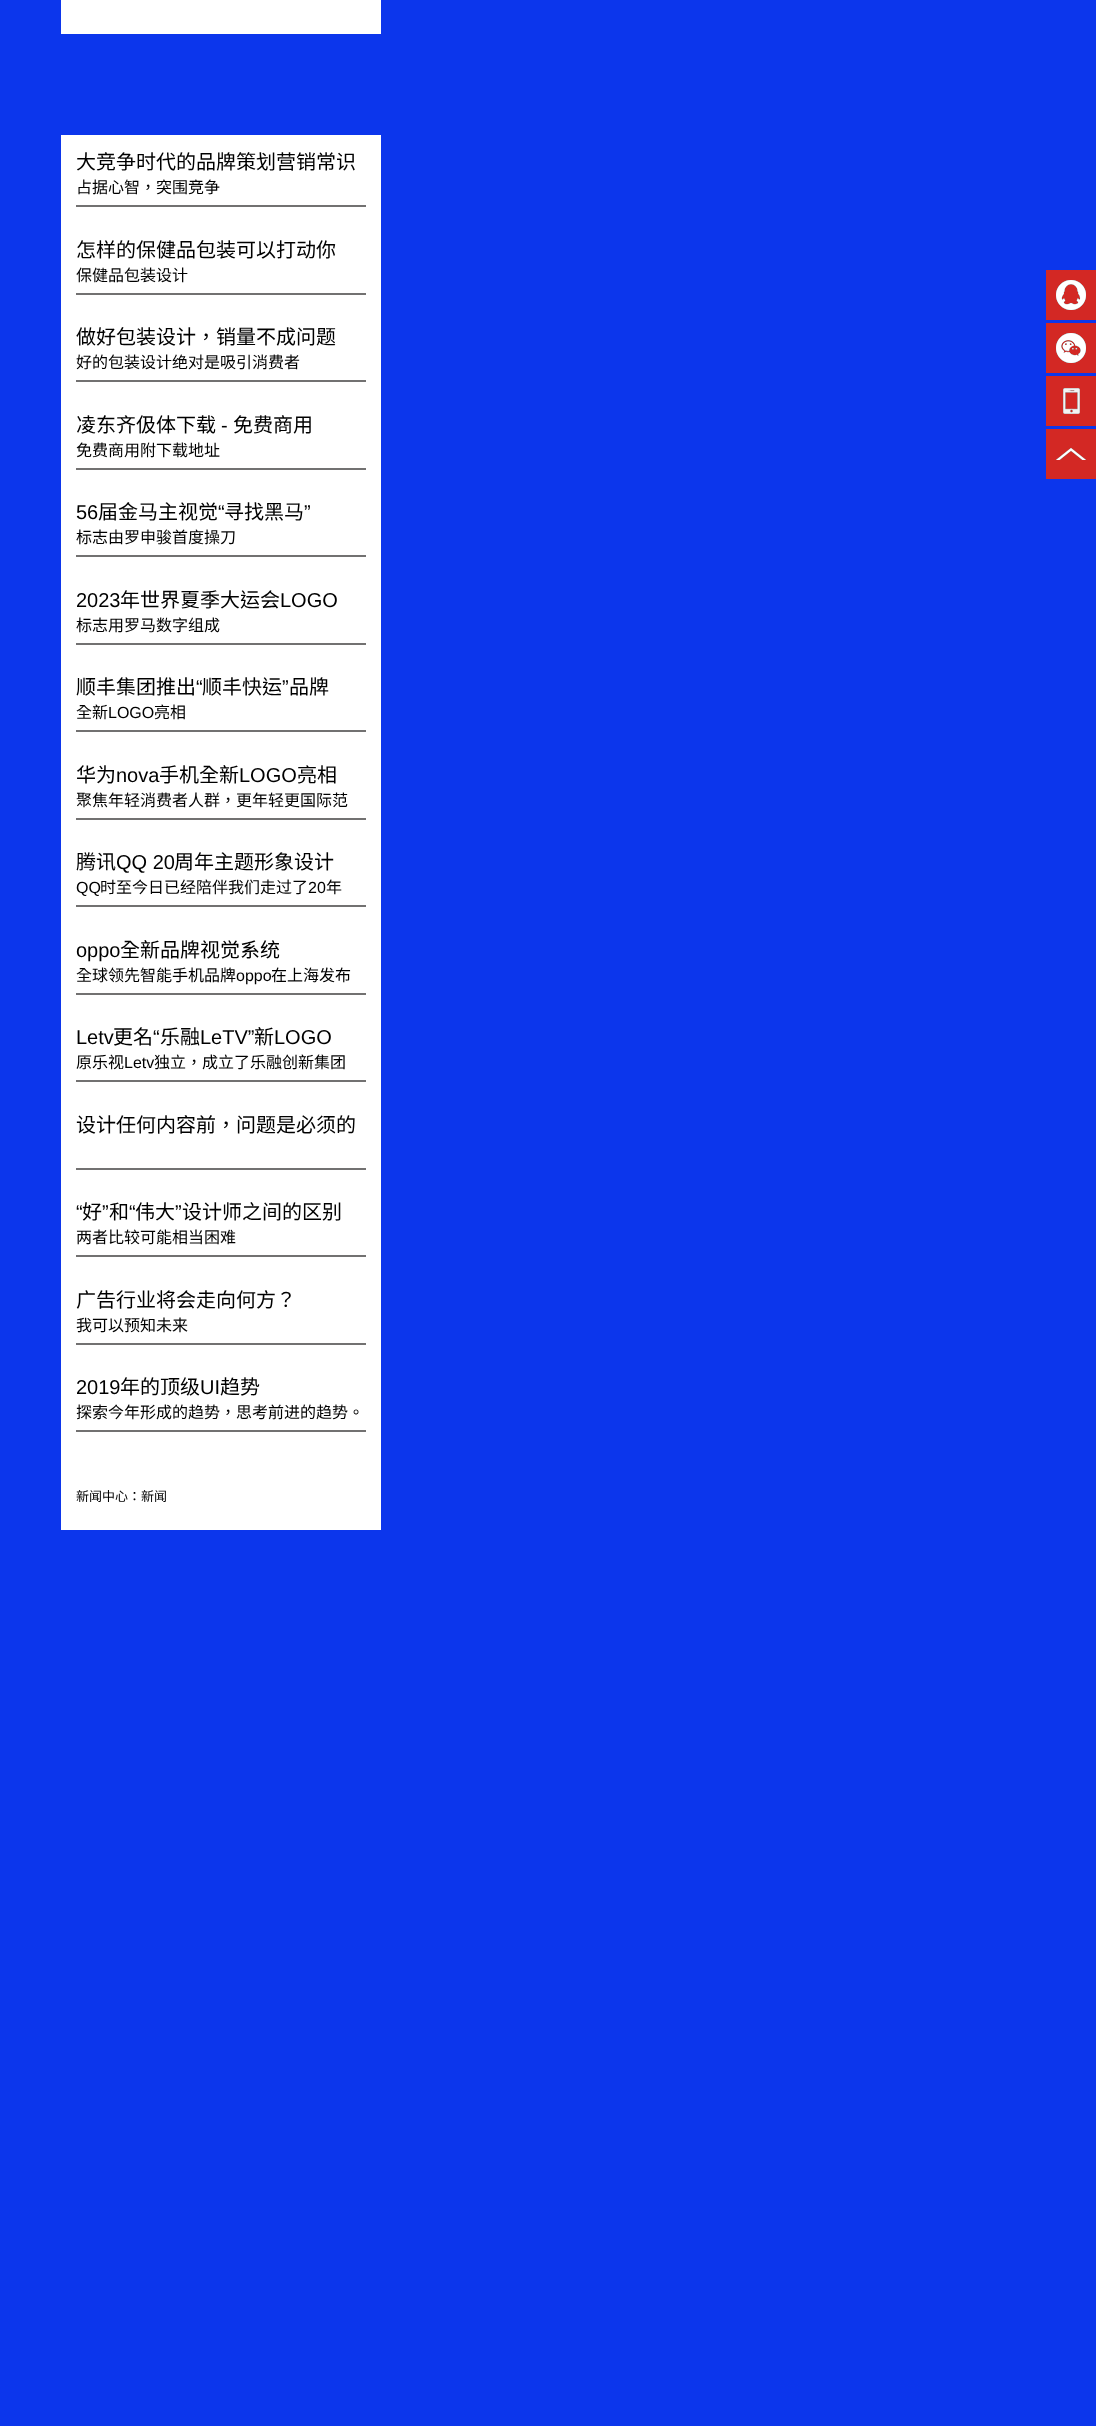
<?xml version="1.0" encoding="UTF-8"?>
<svg xmlns="http://www.w3.org/2000/svg" width="1096" height="2426">
    <rect width="100%" height="100%" fill="#0C36EC"/>
    <rect x="61" y="0" width="320" height="34" fill="#FFFFFF"/>
    <rect x="61" y="135" width="320" height="1395" fill="#FFFFFF"/>
    <rect x="76" y="205" width="290" height="2" fill="#727171"/>
    <text x="76" y="169" font-family="Noto Sans CJK TC" font-size="20" fill="#000000">大竞争时代的品牌策划营销常识</text>
    <text x="76" y="193" font-family="Noto Sans CJK TC" font-size="16" fill="#000000">占据心智，突围竞争</text>
    <rect x="76" y="293" width="290" height="2" fill="#727171"/>
    <text x="76" y="257" font-family="Noto Sans CJK TC" font-size="20" fill="#000000">怎样的保健品包装可以打动你</text>
    <text x="76" y="281" font-family="Noto Sans CJK TC" font-size="16" fill="#000000">保健品包装设计</text>
    <rect x="76" y="380" width="290" height="2" fill="#727171"/>
    <text x="76" y="344" font-family="Noto Sans CJK TC" font-size="20" fill="#000000">做好包装设计，销量不成问题</text>
    <text x="76" y="368" font-family="Noto Sans CJK TC" font-size="16" fill="#000000">好的包装设计绝对是吸引消费者</text>
    <rect x="76" y="468" width="290" height="2" fill="#727171"/>
    <text x="76" y="432" font-family="Noto Sans CJK TC" font-size="20" fill="#000000">凌东齐伋体下载</text>
    <text x="221" y="432" font-family="Liberation Sans" font-size="20" fill="#000000">-</text>
    <text x="233" y="432" font-family="Noto Sans CJK TC" font-size="20" fill="#000000">免费商用</text>
    <text x="76" y="456" font-family="Noto Sans CJK TC" font-size="16" fill="#000000">免费商用附下载地址</text>
    <rect x="76" y="555" width="290" height="2" fill="#727171"/>
    <text x="76" y="519" font-family="Liberation Sans" font-size="20" fill="#000000">56</text>
    <text x="98" y="519" font-family="Noto Sans CJK TC" font-size="20" fill="#000000">届金马主视觉</text>
    <text x="218" y="519" font-family="Liberation Sans" font-size="20" fill="#000000">“</text>
    <text x="224" y="519" font-family="Noto Sans CJK TC" font-size="20" fill="#000000">寻找黑马</text>
    <text x="304" y="519" font-family="Liberation Sans" font-size="20" fill="#000000">”</text>
    <text x="76" y="543" font-family="Noto Sans CJK TC" font-size="16" fill="#000000">标志由罗申骏首度操刀</text>
    <rect x="76" y="643" width="290" height="2" fill="#727171"/>
    <text x="76" y="607" font-family="Liberation Sans" font-size="20" fill="#000000">2023</text>
    <text x="120" y="607" font-family="Noto Sans CJK TC" font-size="20" fill="#000000">年世界夏季大运会</text>
    <text x="280" y="607" font-family="Liberation Sans" font-size="20" fill="#000000">LOGO</text>
    <text x="76" y="631" font-family="Noto Sans CJK TC" font-size="16" fill="#000000">标志用罗马数字组成</text>
    <rect x="76" y="730" width="290" height="2" fill="#727171"/>
    <text x="76" y="694" font-family="Noto Sans CJK TC" font-size="20" fill="#000000">顺丰集团推出</text>
    <text x="196" y="694" font-family="Liberation Sans" font-size="20" fill="#000000">“</text>
    <text x="202" y="694" font-family="Noto Sans CJK TC" font-size="20" fill="#000000">顺丰快运</text>
    <text x="282" y="694" font-family="Liberation Sans" font-size="20" fill="#000000">”</text>
    <text x="289" y="694" font-family="Noto Sans CJK TC" font-size="20" fill="#000000">品牌</text>
    <text x="76" y="718" font-family="Noto Sans CJK TC" font-size="16" fill="#000000">全新</text>
    <text x="108" y="718" font-family="Liberation Sans" font-size="16" fill="#000000">LOGO</text>
    <text x="154" y="718" font-family="Noto Sans CJK TC" font-size="16" fill="#000000">亮相</text>
    <rect x="76" y="818" width="290" height="2" fill="#727171"/>
    <text x="76" y="782" font-family="Noto Sans CJK TC" font-size="20" fill="#000000">华为</text>
    <text x="116" y="782" font-family="Liberation Sans" font-size="20" fill="#000000">nova</text>
    <text x="159" y="782" font-family="Noto Sans CJK TC" font-size="20" fill="#000000">手机全新</text>
    <text x="239" y="782" font-family="Liberation Sans" font-size="20" fill="#000000">LOGO</text>
    <text x="297" y="782" font-family="Noto Sans CJK TC" font-size="20" fill="#000000">亮相</text>
    <text x="76" y="806" font-family="Noto Sans CJK TC" font-size="16" fill="#000000">聚焦年轻消费者人群，更年轻更国际范</text>
    <rect x="76" y="905" width="290" height="2" fill="#727171"/>
    <text x="76" y="869" font-family="Noto Sans CJK TC" font-size="20" fill="#000000">腾讯</text>
    <text x="116" y="869" font-family="Liberation Sans" font-size="20" fill="#000000">QQ 20</text>
    <text x="174" y="869" font-family="Noto Sans CJK TC" font-size="20" fill="#000000">周年主题形象设计</text>
    <text x="76" y="893" font-family="Liberation Sans" font-size="16" fill="#000000">QQ</text>
    <text x="100" y="893" font-family="Noto Sans CJK TC" font-size="16" fill="#000000">时至今日已经陪伴我们走过了</text>
    <text x="308" y="893" font-family="Liberation Sans" font-size="16" fill="#000000">20</text>
    <text x="326" y="893" font-family="Noto Sans CJK TC" font-size="16" fill="#000000">年</text>
    <rect x="76" y="993" width="290" height="2" fill="#727171"/>
    <text x="76" y="957" font-family="Liberation Sans" font-size="20" fill="#000000">oppo</text>
    <text x="120" y="957" font-family="Noto Sans CJK TC" font-size="20" fill="#000000">全新品牌视觉系统</text>
    <text x="76" y="981" font-family="Noto Sans CJK TC" font-size="16" fill="#000000">全球领先智能手机品牌</text>
    <text x="236" y="981" font-family="Liberation Sans" font-size="16" fill="#000000">oppo</text>
    <text x="271" y="981" font-family="Noto Sans CJK TC" font-size="16" fill="#000000">在上海发布</text>
    <rect x="76" y="1080" width="290" height="2" fill="#727171"/>
    <text x="76" y="1044" font-family="Liberation Sans" font-size="20" fill="#000000">Letv</text>
    <text x="113" y="1044" font-family="Noto Sans CJK TC" font-size="20" fill="#000000">更名</text>
    <text x="153" y="1044" font-family="Liberation Sans" font-size="20" fill="#000000">“</text>
    <text x="160" y="1044" font-family="Noto Sans CJK TC" font-size="20" fill="#000000">乐融</text>
    <text x="200" y="1044" font-family="Liberation Sans" font-size="20" fill="#000000">LeTV”</text>
    <text x="254" y="1044" font-family="Noto Sans CJK TC" font-size="20" fill="#000000">新</text>
    <text x="274" y="1044" font-family="Liberation Sans" font-size="20" fill="#000000">LOGO</text>
    <text x="76" y="1068" font-family="Noto Sans CJK TC" font-size="16" fill="#000000">原乐视</text>
    <text x="124" y="1068" font-family="Liberation Sans" font-size="16" fill="#000000">Letv</text>
    <text x="154" y="1068" font-family="Noto Sans CJK TC" font-size="16" fill="#000000">独立，成立了乐融创新集团</text>
    <rect x="76" y="1168" width="290" height="2" fill="#727171"/>
    <text x="76" y="1132" font-family="Noto Sans CJK TC" font-size="20" fill="#000000">设计任何内容前，问题是必须的</text>
    <rect x="76" y="1255" width="290" height="2" fill="#727171"/>
    <text x="76" y="1219" font-family="Liberation Sans" font-size="20" fill="#000000">“</text>
    <text x="82" y="1219" font-family="Noto Sans CJK TC" font-size="20" fill="#000000">好</text>
    <text x="102" y="1219" font-family="Liberation Sans" font-size="20" fill="#000000">”</text>
    <text x="109" y="1219" font-family="Noto Sans CJK TC" font-size="20" fill="#000000">和</text>
    <text x="129" y="1219" font-family="Liberation Sans" font-size="20" fill="#000000">“</text>
    <text x="135" y="1219" font-family="Noto Sans CJK TC" font-size="20" fill="#000000">伟大</text>
    <text x="175" y="1219" font-family="Liberation Sans" font-size="20" fill="#000000">”</text>
    <text x="182" y="1219" font-family="Noto Sans CJK TC" font-size="20" fill="#000000">设计师之间的区别</text>
    <text x="76" y="1243" font-family="Noto Sans CJK TC" font-size="16" fill="#000000">两者比较可能相当困难</text>
    <rect x="76" y="1343" width="290" height="2" fill="#727171"/>
    <text x="76" y="1307" font-family="Noto Sans CJK TC" font-size="20" fill="#000000">广告行业将会走向何方？</text>
    <text x="76" y="1331" font-family="Noto Sans CJK TC" font-size="16" fill="#000000">我可以预知未来</text>
    <rect x="76" y="1430" width="290" height="2" fill="#727171"/>
    <text x="76" y="1394" font-family="Liberation Sans" font-size="20" fill="#000000">2019</text>
    <text x="120" y="1394" font-family="Noto Sans CJK TC" font-size="20" fill="#000000">年的顶级</text>
    <text x="200" y="1394" font-family="Liberation Sans" font-size="20" fill="#000000">UI</text>
    <text x="220" y="1394" font-family="Noto Sans CJK TC" font-size="20" fill="#000000">趋势</text>
    <text x="76" y="1418" font-family="Noto Sans CJK TC" font-size="16" fill="#000000">探索今年形成的趋势，思考前进的趋势。</text>
    <text x="76" y="1501" font-family="Noto Sans CJK TC" font-size="13" fill="#000000">新闻中心：新闻</text>
    <rect x="1046" y="270" width="50" height="50" fill="#D32824"/>
    <image x="1056" y="280" width="30" height="30" href="img_01.png"/>
    <rect x="1046" y="323" width="50" height="50" fill="#D32824"/>
    <image x="1056" y="333" width="30" height="30" href="img_02.png"/>
    <rect x="1046" y="376" width="50" height="50" fill="#D32824"/>
    <image x="1063" y="388" width="17" height="26" href="img_03.png"/>
    <rect x="1046" y="429" width="50" height="50" fill="#D32824"/>
    <image x="1056" y="448" width="30" height="12" href="img_04.png"/>
</svg>
